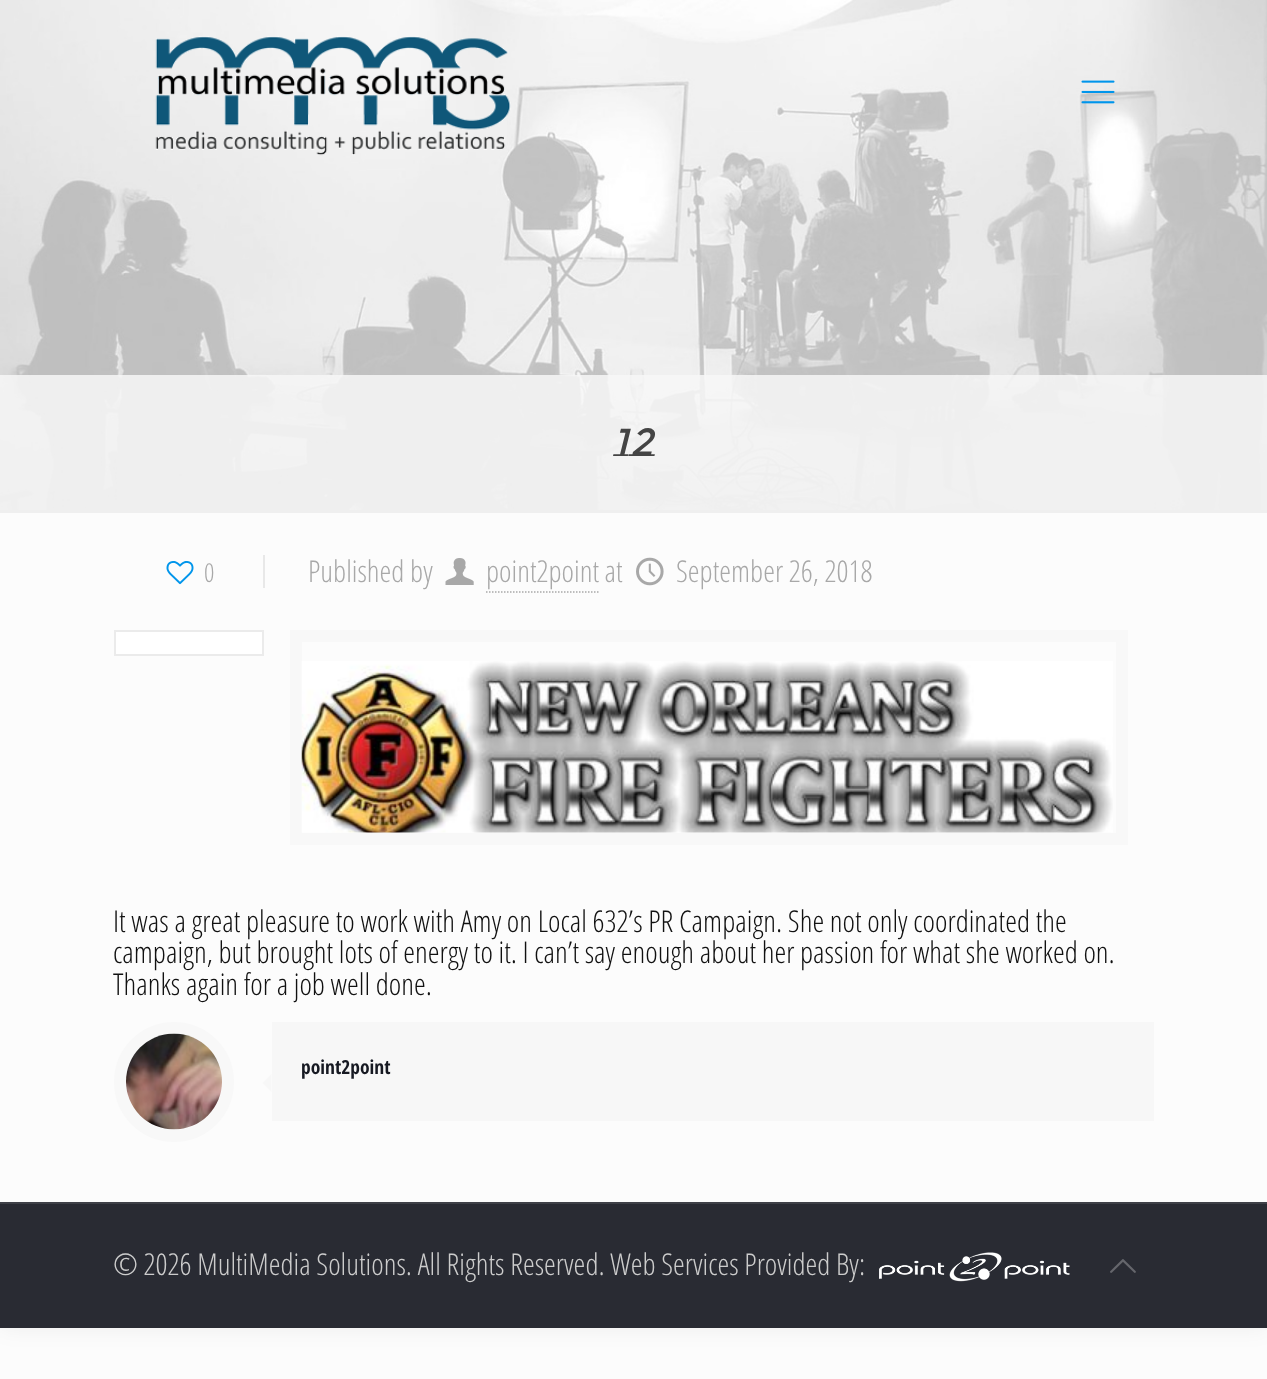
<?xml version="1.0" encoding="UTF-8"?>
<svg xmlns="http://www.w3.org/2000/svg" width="1267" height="1379">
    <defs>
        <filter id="blur1" x="-50%" y="-200%" width="200%" height="500%"><feGaussianBlur stdDeviation="11"/></filter>
    </defs>
    <rect width="100%" height="100%" fill="#FCFCFC"/>
    <rect x="0" y="0" width="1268" height="1328" fill="#000000" fill-opacity="0.06" filter="url(#blur1)"/>
    <rect x="0" y="513" width="1267" height="689" fill="#FCFCFC"/>
    <image x="0" y="0" width="1267" height="510" href="img_01.png"/>
    <image x="155" y="36" width="356" height="120" href="img_02.png"/>
    <image x="1081" y="80" width="34" height="24" href="img_03.png"/>
    <rect x="0" y="375" width="1267" height="135" fill="#F7F7F7" fill-opacity="0.85"/>
    <text x="613" y="456" font-family="Montserrat Subrayada" font-size="39" font-style="italic" letter-spacing="2" fill="#444444">12</text>
    <rect x="0" y="510" width="1267" height="3" fill="#EFEFEF"/>
    <image x="166" y="561" width="28" height="24" href="img_04.png"/>
    <text x="204" y="582" font-family="Open Sans Condensed" font-size="26" font-weight="300" fill="#A8A8A8">0</text>
    <rect x="263" y="555" width="2" height="33" fill="#E8E8E8"/>
    <text x="308" y="582" font-family="Open Sans Condensed" font-size="30" font-weight="300" fill="#A8A8A8">Published by</text>
    <image x="445" y="558" width="29" height="27" href="img_05.png"/>
    <text x="486" y="582" font-family="Open Sans Condensed" font-size="30" font-weight="300" fill="#A8A8A8">point2point at</text>
    <path d="M 486 592 H 600" fill="none" stroke="#A8A8A8" stroke-width="1.5" stroke-dasharray="1.5 1.5"/>
    <image x="636" y="557" width="28" height="29" href="img_06.png"/>
    <text x="676" y="582" font-family="Open Sans Condensed" font-size="30" font-weight="300" fill="#A8A8A8">September 26, 2018</text>
    <rect x="115" y="631" width="148" height="24" fill="#FFFFFF" stroke="#EBEBEB" stroke-width="2"/>
    <rect x="296" y="636" width="826" height="203" fill="none" stroke="#F8F8F8" stroke-width="12"/>
    <image x="301" y="661" width="812" height="172" href="img_07.png"/>
    <text font-family="Open Sans Condensed" font-size="30" font-weight="300" fill="#111111">
        <tspan x="113" y="932">It was a great pleasure to work with Amy on Local 632’s PR Campaign. She not only coordinated the</tspan>
        <tspan x="113" y="963">campaign, but brought lots of energy to it. I can’t say enough about her passion for what she worked on.</tspan>
        <tspan x="113" y="995">Thanks again for a job well done.</tspan>
    </text>
    <circle cx="174" cy="1082" r="54" fill="none" stroke="#F8F8F8" stroke-width="12"/>
    <image x="126" y="1033" width="96" height="97" href="img_08.png"/>
    <rect x="272" y="1022" width="882" height="99" fill="#F7F7F7"/>
    <text x="301" y="1074" font-family="Open Sans Condensed" font-size="19.5" font-weight="700" fill="#161922">point2point</text>
    <path d="M 271.5 1074 V 1092 L 262.5 1083 Z" fill="#F7F7F7"/>
    <rect x="0" y="1204" width="1267" height="124" fill="#292B33"/>
    <rect x="0" y="1202" width="1267" height="2" fill="#3E4047"/>
    <text x="113" y="1275" font-family="Open Sans Condensed" font-size="30" font-weight="300" fill="#CCCCCC">© 2026 MultiMedia Solutions. All Rights Reserved. Web Services Provided By:</text>
    <image x="879" y="1252" width="191" height="30" href="img_09.png"/>
    <image x="1110" y="1259" width="26" height="14" href="img_10.png"/>
</svg>
